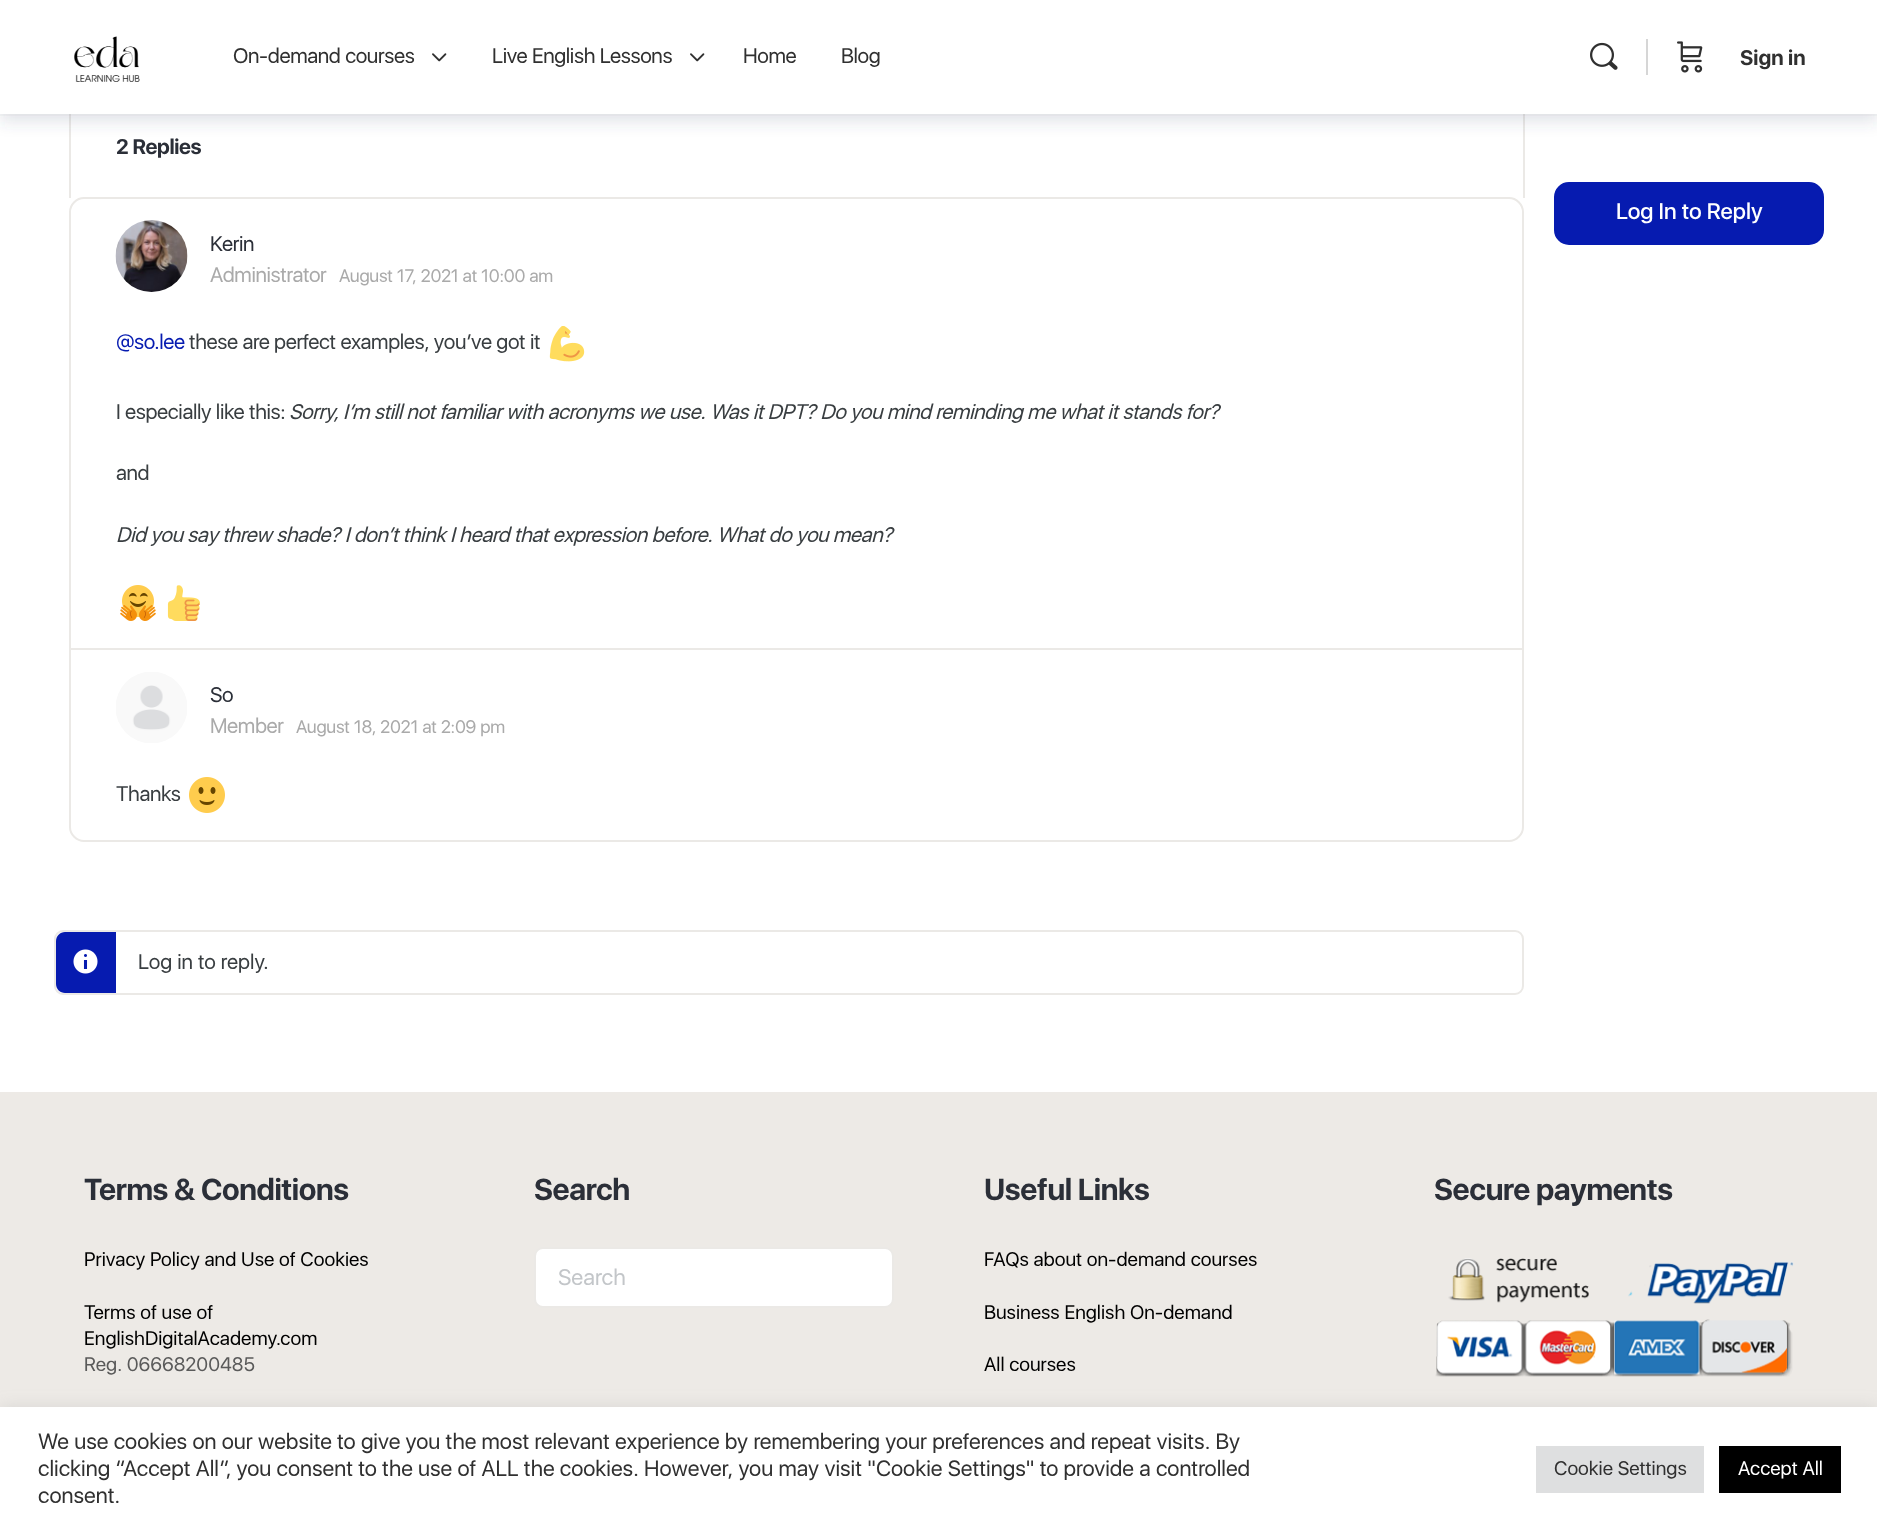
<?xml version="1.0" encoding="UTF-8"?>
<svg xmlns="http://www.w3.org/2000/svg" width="1877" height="1529">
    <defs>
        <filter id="blur1" x="-50%" y="-200%" width="200%" height="500%"><feGaussianBlur stdDeviation="7.5"/></filter>
    </defs>
    <rect width="100%" height="100%" fill="#FFFFFF"/>
    <rect x="1523" y="114" width="2" height="84" fill="#EBE9E6"/>
    <rect x="69" y="114" width="2" height="84" fill="#EBE9E6"/>
    <rect x="0" y="8" width="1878" height="114" fill="#41476C" fill-opacity="0.15" filter="url(#blur1)"/>
    <rect x="0" y="114" width="1877" height="2" fill="#8B8D9D" fill-opacity="0.05"/>
    <rect x="0" y="0" width="1877" height="114" fill="#FFFFFF"/>
    <image x="74" y="36" width="66" height="46" href="img_01.png"/>
    <text x="233" y="63" font-family="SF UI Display" font-size="21" letter-spacing="-0.36" fill="#303030">On-demand courses</text>
    <image x="432" y="53" width="15" height="9" href="img_02.png"/>
    <text x="492" y="63" font-family="SF UI Display" font-size="21" letter-spacing="-0.36" fill="#303030">Live English Lessons</text>
    <image x="690" y="53" width="15" height="9" href="img_02.png"/>
    <text x="743" y="63" font-family="SF UI Display" font-size="21" letter-spacing="-0.36" fill="#303030">Home</text>
    <text x="841" y="63" font-family="SF UI Display" font-size="21" letter-spacing="-0.36" fill="#303030">Blog</text>
    <image x="1590" y="42" width="28" height="28" href="img_03.png"/>
    <rect x="1646" y="39" width="2" height="36" fill="#D6D6D6"/>
    <image x="1677" y="41" width="26" height="32" href="img_04.png"/>
    <text x="1740" y="65" font-family="SF UI Display" font-size="21" font-weight="700" fill="#303030">Sign in</text>
    <text x="116" y="154" font-family="SF UI Display" font-size="21" font-weight="700" letter-spacing="-0.36" fill="#2B2F38">2 Replies</text>
    <path d="M 84 198 H 1509 C 1516.5 198 1523 204.5 1523 212 V 649 H 70 V 212 C 70 204.5 76.5 198 84 198 Z" fill="none" stroke="#EBE9E6" stroke-width="2"/>
    <image x="115" y="220" width="73" height="72" href="img_05.png"/>
    <text x="210" y="251" font-family="SF UI Display" font-size="21" letter-spacing="-0.36" fill="#2B2F38">Kerin</text>
    <text x="210" y="282" font-family="SF UI Display" font-size="21" letter-spacing="-0.36" fill="#AAAAAA">Administrator</text>
    <text x="339" y="282" font-family="SF UI Display" font-size="18" letter-spacing="-0.25" fill="#AAAAAA">August 17, 2021 at 10:00 am</text>
    <text x="116" y="349" font-family="SF UI Display" font-size="21" letter-spacing="-0.36" fill="#061BB0">@so.lee</text>
    <text x="189" y="349" font-family="SF UI Display" font-size="21" letter-spacing="-0.36" fill="#393E41">these are perfect examples, you’ve got it</text>
    <image x="549" y="326" width="36" height="36" href="img_06.png"/>
    <text x="116" y="419" font-family="SF UI Display" font-size="21" letter-spacing="-0.36" fill="#393E41">I especially like this:</text>
    <text x="289" y="419" font-family="SF UI Display" font-size="21" font-style="italic" letter-spacing="-0.36" fill="#393E41">Sorry, I’m still not familiar with acronyms we use. Was it DPT? Do you mind reminding me what it stands for?</text>
    <text x="116" y="480" font-family="SF UI Display" font-size="21" letter-spacing="-0.36" fill="#393E41">and</text>
    <text x="116" y="542" font-family="SF UI Display" font-size="21" font-style="italic" letter-spacing="-0.36" fill="#393E41">Did you say threw shade? I don’t think I heard that expression before. What do you mean?</text>
    <image x="120" y="585" width="36" height="36" href="img_07.png"/>
    <image x="167" y="585" width="33" height="36" href="img_08.png"/>
    <path d="M 70 649 H 1523 V 827 C 1523 834.5 1516.5 841 1509 841 H 84 C 76.5 841 70 834.5 70 827 Z" fill="#FFFFFF" stroke="#EBE9E6" stroke-width="2"/>
    <image x="116" y="672" width="71" height="71" href="img_09.png"/>
    <text x="210" y="702" font-family="SF UI Display" font-size="21" letter-spacing="-0.36" fill="#2B2F38">So</text>
    <text x="210" y="733" font-family="SF UI Display" font-size="21" letter-spacing="-0.36" fill="#AAAAAA">Member</text>
    <text x="296" y="733" font-family="SF UI Display" font-size="18" letter-spacing="-0.25" fill="#AAAAAA">August 18, 2021 at 2:09 pm</text>
    <text x="116" y="801" font-family="SF UI Display" font-size="21" letter-spacing="-0.36" fill="#393E41">Thanks</text>
    <image x="189" y="777" width="36" height="36" href="img_10.png"/>
    <rect x="55" y="931" width="1468" height="63" rx="8" fill="none" stroke="#EBE9E6" stroke-width="2"/>
    <path d="M 65 932 H 116 V 993 H 65 C 60 993 56 989 56 984 V 941 C 56 936 60 932 65 932 Z" fill="#061BB0"/>
    <image x="73" y="949" width="25" height="25" href="img_11.png"/>
    <text x="138" y="969" font-family="SF UI Display" font-size="21" fill="#393E41">Log in to reply.</text>
    <rect x="1555" y="183" width="268" height="61" rx="14" fill="#061BB0" stroke="#061BB0" stroke-width="2"/>
    <text x="1616" y="219" font-family="SF UI Display" font-size="22.5" font-weight="500" fill="#FFFFFF">Log In to Reply</text>
    <rect x="0" y="1092" width="1877" height="315" fill="#EDEAE6"/>
    <text x="84" y="1200" font-family="SF UI Display" font-size="30" font-weight="700" letter-spacing="-0.36" fill="#2B2F38">Terms &amp; Conditions</text>
    <text x="84" y="1266" font-family="SF UI Display" font-size="19.5" fill="#000000">Privacy Policy and Use of Cookies</text>
    <text font-family="SF UI Display" font-size="19.5" fill="#000000">
        <tspan x="84" y="1319">Terms of use of</tspan>
        <tspan x="84" y="1345">EnglishDigitalAcademy.com</tspan>
    </text>
    <text x="84" y="1371" font-family="SF UI Display" font-size="19.5" fill="#5A5A5A">Reg. 06668200485</text>
    <text x="534" y="1200" font-family="SF UI Display" font-size="30" font-weight="700" letter-spacing="-0.36" fill="#2B2F38">Search</text>
    <rect x="535" y="1248" width="358" height="59" rx="8" fill="#FFFFFF" stroke="#EBE9E6" stroke-width="2"/>
    <text x="558" y="1285" font-family="SF UI Display" font-size="22.5" fill="#C3C6C9">Search</text>
    <text x="984" y="1200" font-family="SF UI Display" font-size="30" font-weight="700" letter-spacing="-0.36" fill="#2B2F38">Useful Links</text>
    <text x="984" y="1266" font-family="SF UI Display" font-size="19.5" fill="#000000">FAQs about on-demand courses</text>
    <text x="984" y="1319" font-family="SF UI Display" font-size="19.5" fill="#000000">Business English On-demand</text>
    <text x="984" y="1371" font-family="SF UI Display" font-size="19.5" fill="#000000">All courses</text>
    <text x="1434" y="1200" font-family="SF UI Display" font-size="30" font-weight="700" letter-spacing="-0.36" fill="#2B2F38">Secure payments</text>
    <image x="1435" y="1258" width="359" height="119" href="img_12.png"/>
    <rect x="0" y="1406" width="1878" height="123" fill="#ACABAB" fill-opacity="0.3" filter="url(#blur1)"/>
    <rect x="0" y="1407" width="1877" height="122" fill="#FFFFFF"/>
    <text font-family="SF UI Display" font-size="22" fill="#303030">
        <tspan x="38" y="1449">We use cookies on our website to give you the most relevant experience by remembering your preferences and repeat visits. By</tspan>
        <tspan x="38" y="1476">clicking “Accept All”, you consent to the use of ALL the cookies. However, you may visit "Cookie Settings" to provide a controlled</tspan>
        <tspan x="38" y="1503">consent.</tspan>
    </text>
    <rect x="1536" y="1446" width="168" height="47" fill="#DEDFE0"/>
    <text x="1554" y="1475" font-family="SF UI Display" font-size="19.5" fill="#303030">Cookie Settings</text>
    <rect x="1719" y="1446" width="122" height="47" fill="#000000"/>
    <text x="1738" y="1475" font-family="SF UI Display" font-size="19.5" fill="#FFFFFF">Accept All</text>
</svg>
